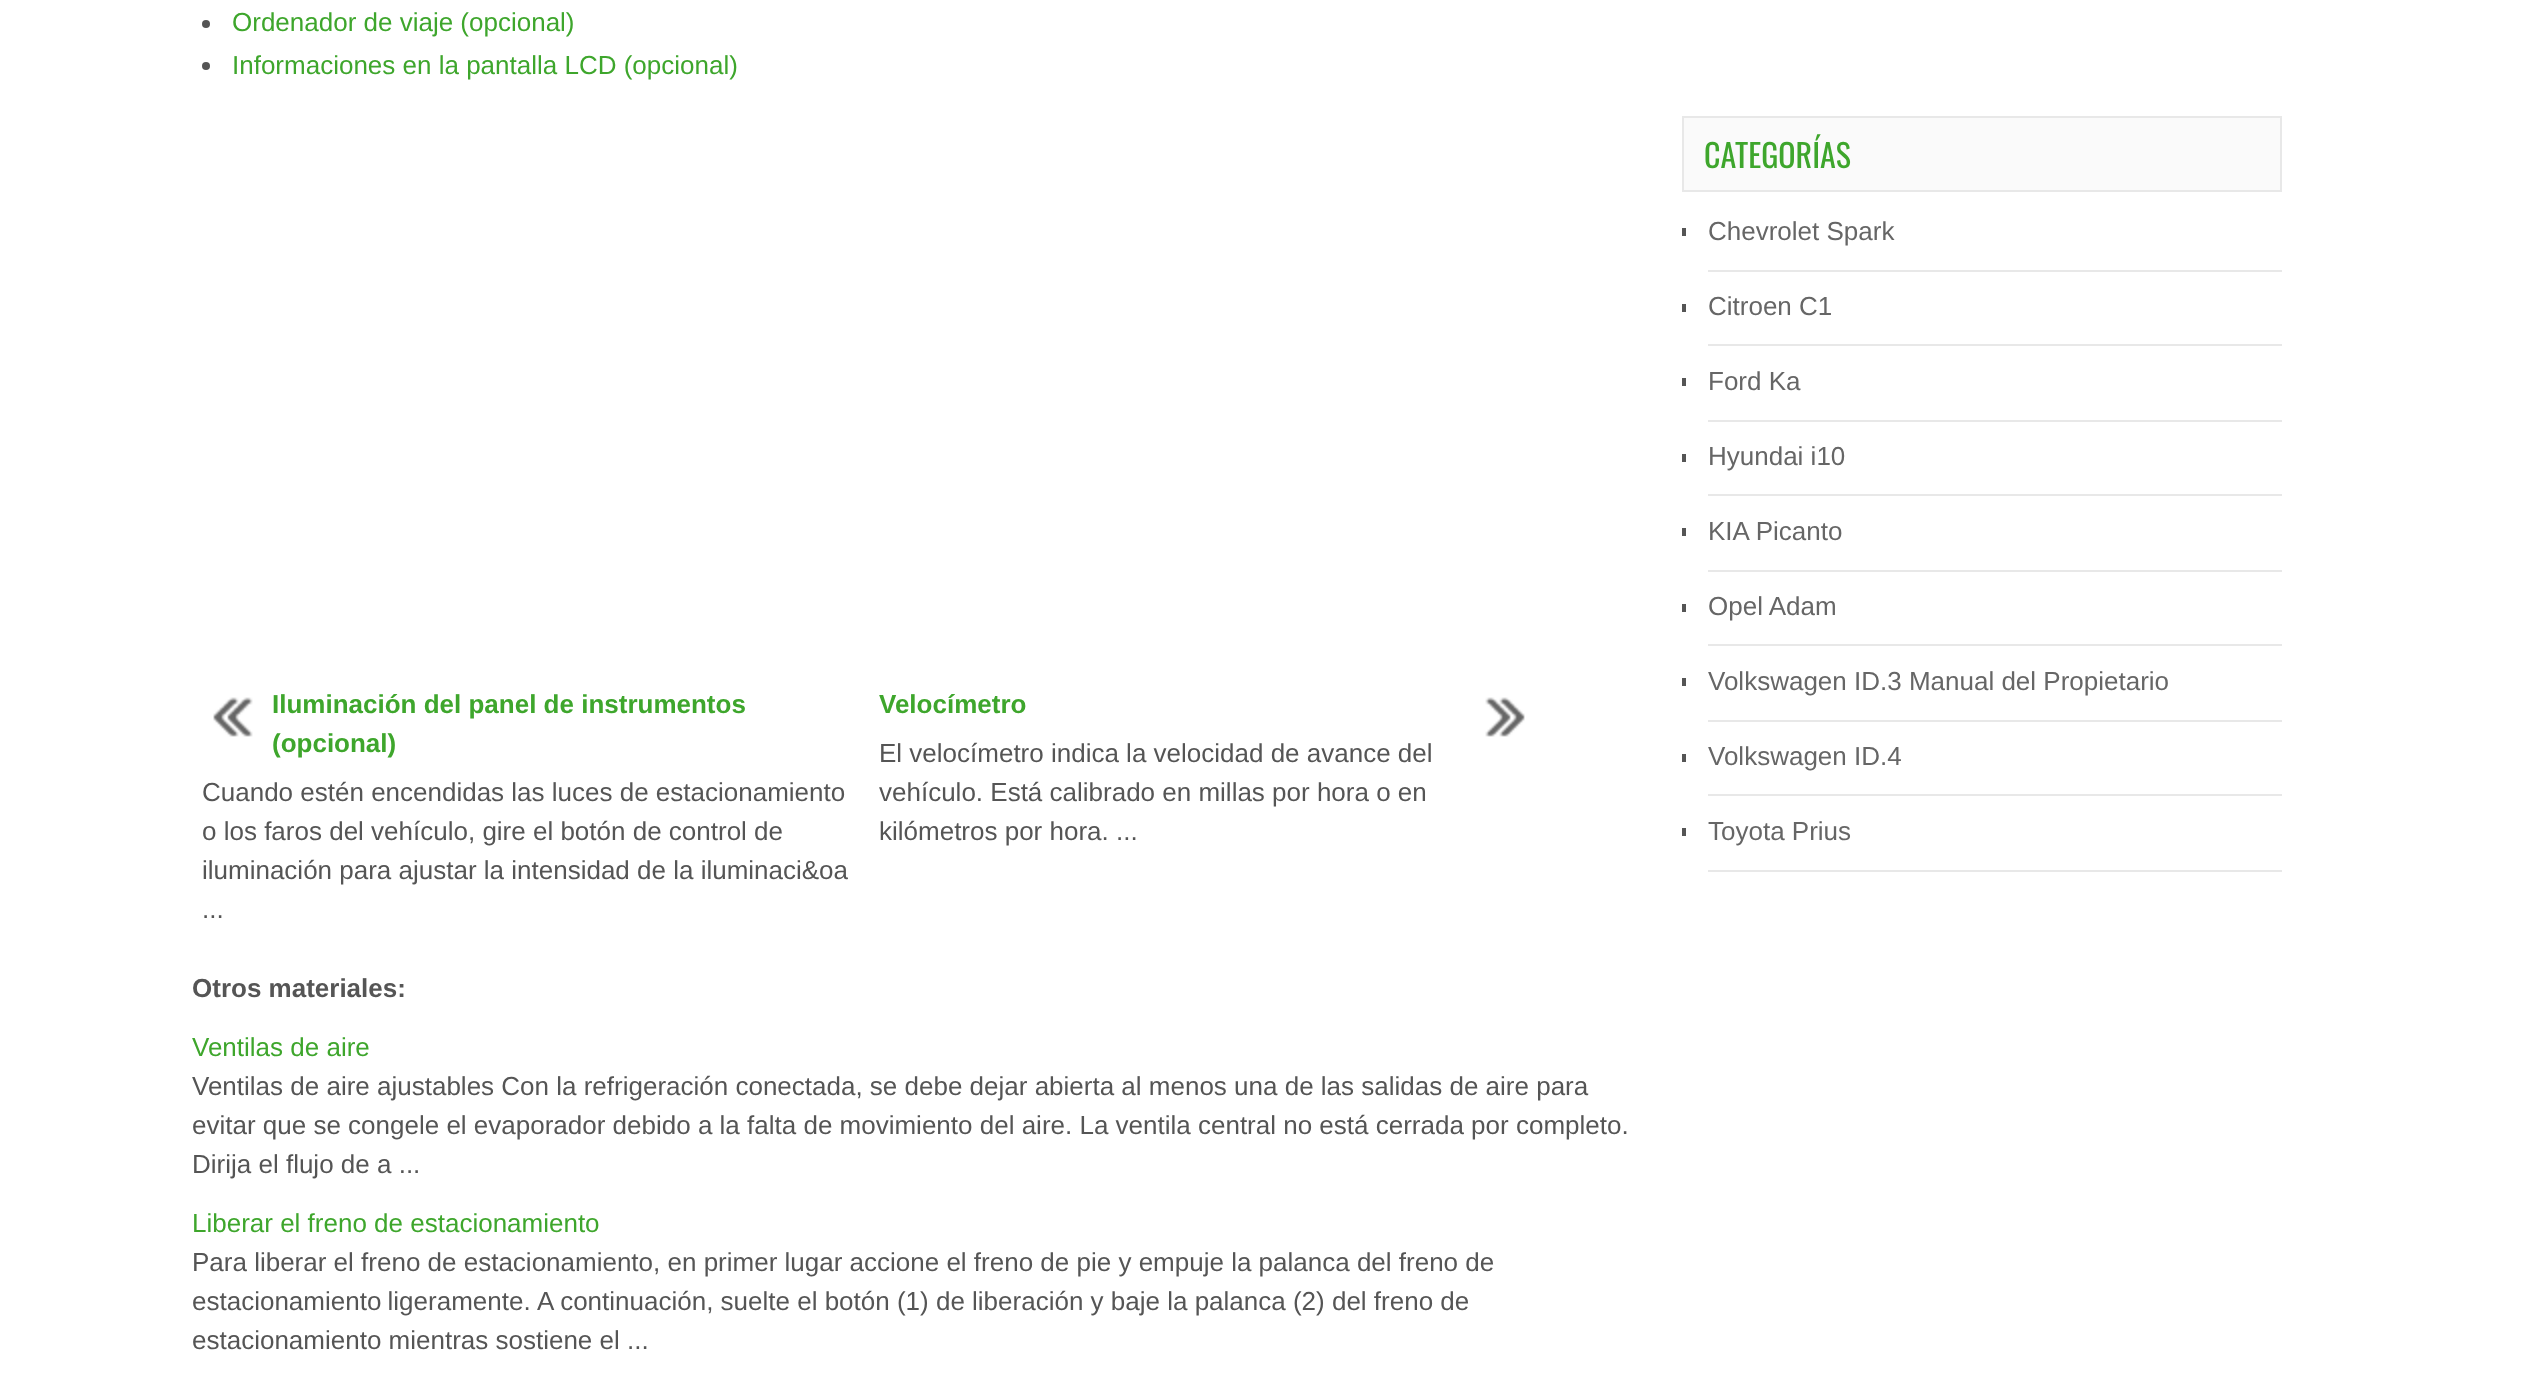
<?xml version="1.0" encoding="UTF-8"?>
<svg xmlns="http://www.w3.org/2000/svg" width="2533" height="1375">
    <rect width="100%" height="100%" fill="#FFFFFF"/>
    <circle cx="206" cy="24" r="4" fill="#555555"/>
    <text x="232" y="31" font-family="Liberation Sans" font-size="26" fill="#3EA62C">Ordenador de viaje (opcional)</text>
    <circle cx="206" cy="66" r="4" fill="#555555"/>
    <text x="232" y="74" font-family="Liberation Sans" font-size="26" fill="#3EA62C">Informaciones en la pantalla LCD (opcional)</text>
    <image x="213" y="697" width="40" height="40" href="img_01.png"/>
    <text font-family="Liberation Sans" font-size="26" font-weight="700" fill="#3EA62C">
        <tspan x="272" y="713">Iluminación del panel de instrumentos</tspan>
        <tspan x="272" y="752">(opcional)</tspan>
    </text>
    <text font-family="Liberation Sans" font-size="26" fill="#555555">
        <tspan x="202" y="801">Cuando estén encendidas las luces de estacionamiento</tspan>
        <tspan x="202" y="840">o los faros del vehículo, gire el botón de control de</tspan>
        <tspan x="202" y="879">iluminación para ajustar la intensidad de la iluminaci&amp;oa</tspan>
        <tspan x="202" y="918">...</tspan>
    </text>
    <text x="879" y="713" font-family="Liberation Sans" font-size="26" font-weight="700" fill="#3EA62C">Velocímetro</text>
    <image x="1485" y="697" width="40" height="40" href="img_02.png"/>
    <text font-family="Liberation Sans" font-size="26" fill="#555555">
        <tspan x="879" y="762">El velocímetro indica la velocidad de avance del</tspan>
        <tspan x="879" y="801">vehículo. Está calibrado en millas por hora o en</tspan>
        <tspan x="879" y="840">kilómetros por hora. ...</tspan>
    </text>
    <text x="192" y="997" font-family="Liberation Sans" font-size="26" font-weight="700" fill="#555555">Otros materiales:</text>
    <text x="192" y="1056" font-family="Liberation Sans" font-size="26" fill="#3EA62C">Ventilas de aire</text>
    <text font-family="Liberation Sans" font-size="26" fill="#555555">
        <tspan x="192" y="1095">Ventilas de aire ajustables Con la refrigeración conectada, se debe dejar abierta al menos una de las salidas de aire para</tspan>
        <tspan x="192" y="1134">evitar que se congele el evaporador debido a la falta de movimiento del aire. La ventila central no está cerrada por completo.</tspan>
        <tspan x="192" y="1173">Dirija el flujo de a ...</tspan>
    </text>
    <text x="192" y="1232" font-family="Liberation Sans" font-size="26" fill="#3EA62C">Liberar el freno de estacionamiento</text>
    <text font-family="Liberation Sans" font-size="26" fill="#555555">
        <tspan x="192" y="1271">Para liberar el freno de estacionamiento, en primer lugar accione el freno de pie y empuje la palanca del freno de</tspan>
        <tspan x="192" y="1310" word-spacing="-1">estacionamiento ligeramente.</tspan>
    </text>
    <text x="537" y="1310" font-family="Liberation Sans" font-size="26" fill="#555555">A continuación, suelte el botón (1) de liberación y baje la palanca (2) del freno de</text>
    <text x="192" y="1349" font-family="Liberation Sans" font-size="26" fill="#555555">estacionamiento mientras sostiene el ...</text>
    <rect x="1683" y="117" width="598" height="74" fill="#FAFAFA" stroke="#E8E8E8" stroke-width="2"/>
    <text x="1704" y="168" font-family="Oswald" font-size="32" fill="#3EA62C">CATEGORÍAS</text>
    <rect x="1708" y="270" width="574" height="2" fill="#E8E8E8"/>
    <rect x="1682" y="228" width="4" height="8" fill="#555555"/>
    <text x="1708" y="240" font-family="Liberation Sans" font-size="26" fill="#666666">Chevrolet Spark</text>
    <rect x="1708" y="344" width="574" height="2" fill="#E8E8E8"/>
    <rect x="1682" y="304" width="4" height="8" fill="#555555"/>
    <text x="1708" y="315" font-family="Liberation Sans" font-size="26" fill="#666666">Citroen C1</text>
    <rect x="1708" y="420" width="574" height="2" fill="#E8E8E8"/>
    <rect x="1682" y="378" width="4" height="8" fill="#555555"/>
    <text x="1708" y="390" font-family="Liberation Sans" font-size="26" fill="#666666">Ford Ka</text>
    <rect x="1708" y="494" width="574" height="2" fill="#E8E8E8"/>
    <rect x="1682" y="454" width="4" height="8" fill="#555555"/>
    <text x="1708" y="465" font-family="Liberation Sans" font-size="26" fill="#666666">Hyundai i10</text>
    <rect x="1708" y="570" width="574" height="2" fill="#E8E8E8"/>
    <rect x="1682" y="528" width="4" height="8" fill="#555555"/>
    <text x="1708" y="540" font-family="Liberation Sans" font-size="26" fill="#666666">KIA Picanto</text>
    <rect x="1708" y="644" width="574" height="2" fill="#E8E8E8"/>
    <rect x="1682" y="604" width="4" height="8" fill="#555555"/>
    <text x="1708" y="615" font-family="Liberation Sans" font-size="26" fill="#666666">Opel Adam</text>
    <rect x="1708" y="720" width="574" height="2" fill="#E8E8E8"/>
    <rect x="1682" y="678" width="4" height="8" fill="#555555"/>
    <text x="1708" y="690" font-family="Liberation Sans" font-size="26" fill="#666666">Volkswagen ID.3 Manual del Propietario</text>
    <rect x="1708" y="794" width="574" height="2" fill="#E8E8E8"/>
    <rect x="1682" y="754" width="4" height="8" fill="#555555"/>
    <text x="1708" y="765" font-family="Liberation Sans" font-size="26" fill="#666666">Volkswagen ID.4</text>
    <rect x="1708" y="870" width="574" height="2" fill="#E8E8E8"/>
    <rect x="1682" y="828" width="4" height="8" fill="#555555"/>
    <text x="1708" y="840" font-family="Liberation Sans" font-size="26" fill="#666666">Toyota Prius</text>
</svg>
